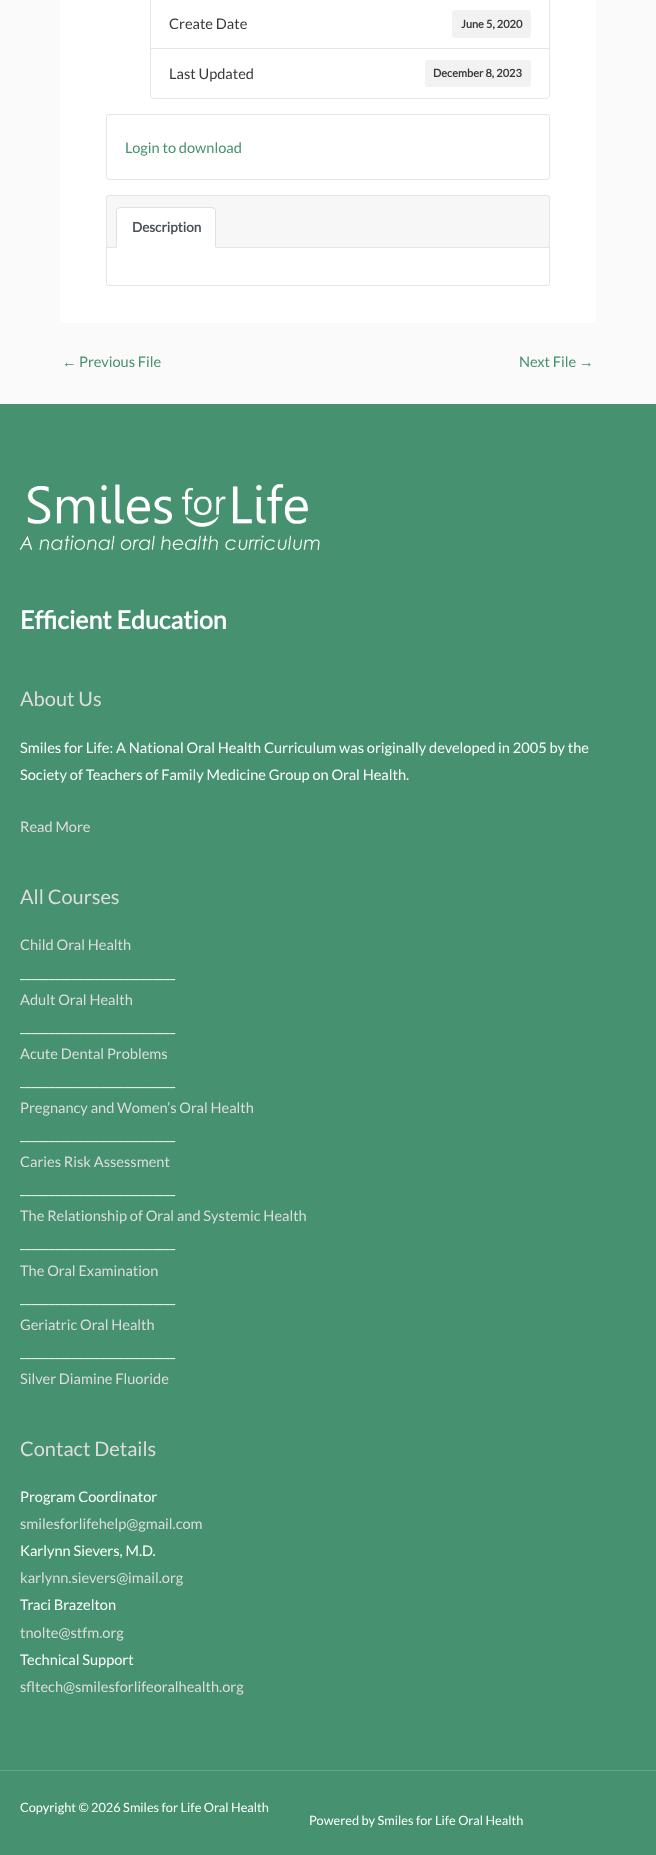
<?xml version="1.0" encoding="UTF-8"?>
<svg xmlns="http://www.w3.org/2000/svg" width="656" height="1855">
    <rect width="100%" height="100%" fill="#FAFAFA"/>
    <rect x="60" y="0" width="536" height="323" fill="#FFFFFF"/>
    <rect x="150.5" y="-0.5" width="399" height="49" fill="none" stroke="#E5E5E5"/>
    <text x="169" y="29" font-family="Lato" font-size="14.6" fill="#3A3A3A">Create Date</text>
    <rect x="452" y="10" width="79" height="28" rx="3" fill="#F2F2F2"/>
    <text x="461" y="28" font-family="Lato" font-size="11" font-weight="700" fill="#3A3A3A">June 5, 2020</text>
    <path d="M 150.5 48.5 H 549.5 V 95 C 549.5 97 548 98.5 546 98.5 H 154 C 152 98.5 150.5 97 150.5 95 Z" fill="#FFFFFF" stroke="#E5E5E5"/>
    <text x="169" y="79" font-family="Lato" font-size="14.6" fill="#3A3A3A">Last Updated</text>
    <rect x="425" y="60" width="106" height="27" rx="3" fill="#F2F2F2"/>
    <text x="433" y="77" font-family="Lato" font-size="11" font-weight="700" fill="#3A3A3A">December 8, 2023</text>
    <rect x="106.5" y="114.5" width="443" height="65" rx="2.5" fill="none" stroke="#E5E5E5"/>
    <text x="125" y="153" font-family="Lato" font-size="14.6" fill="#459170">Login to download</text>
    <rect x="106.5" y="195.5" width="443" height="90" rx="2.5" fill="none" stroke="#E5E5E5"/>
    <rect x="107" y="196" width="442" height="51" fill="#000000" fill-opacity="0.03"/>
    <rect x="107" y="247" width="442" height="1" fill="#E5E5E5"/>
    <path d="M 120 207 H 212 C 214 207 216 209 216 211 V 248 H 116 V 211 C 116 209 118 207 120 207 Z" fill="#FFFFFF"/>
    <path d="M 120 207 L 117 208 L 118 209 L 120 208 H 212 L 214 209 L 215 208 L 212 207 Z" fill="#DEE2E6"/>
    <path d="M 216 248 V 211 C 216 210 215.5 209 215 208 L 214 209 C 215 209 215 210 215 211 V 247 Z" fill="#DEE2E6"/>
    <path d="M 216 248 L 215 247 H 117 L 116 248 Z" fill="#FFFFFF"/>
    <path d="M 116 248 L 117 247 V 211 C 117 210 117 209 118 209 L 117 208 C 116.5 209 116 210 116 211 Z" fill="#DEE2E6"/>
    <text x="132" y="232" font-family="Lato" font-size="13.5" font-weight="700" fill="#495057">Description</text>
    <text x="62" y="367" font-family="Liberation Sans" font-size="14.6" fill="#459170">←</text>
    <text x="79" y="367" font-family="Lato" font-size="14.6" fill="#459170">Previous File</text>
    <text x="519" y="367" font-family="Lato" font-size="14.6" fill="#459170">Next File</text>
    <text x="579" y="367" font-family="Liberation Sans" font-size="14.6" fill="#459170">→</text>
    <rect x="0" y="404" width="656" height="1366" fill="#459170"/>
    <image x="20" y="484" width="300" height="67" href="img_01.png"/>
    <text x="20" y="629" font-family="Lato" font-size="25" font-weight="700" fill="#FFFFFF">Efficient Education</text>
    <text x="20" y="706" font-family="Lato" font-size="20" fill="#DDDDDD">About Us</text>
    <text font-family="Lato" font-size="14.6" fill="#FFFFFF">
        <tspan x="20" y="753">Smiles for Life: A National Oral Health Curriculum was originally developed in 2005 by the</tspan>
        <tspan x="20" y="780">Society of Teachers of Family Medicine Group on Oral Health.</tspan>
    </text>
    <text x="20" y="832" font-family="Lato" font-size="14.6" fill="#DDDDDD">Read More</text>
    <text x="20" y="904" font-family="Lato" font-size="20" fill="#DDDDDD">All Courses</text>
    <text x="20" y="950" font-family="Lato" font-size="14.6" fill="#DDDDDD">Child Oral Health</text>
    <text x="20" y="978" font-family="Lato" font-size="14.6" fill="#FFFFFF">___________________________</text>
    <text x="20" y="1005" font-family="Lato" font-size="14.6" fill="#DDDDDD">Adult Oral Health</text>
    <text x="20" y="1032" font-family="Lato" font-size="14.6" fill="#FFFFFF">___________________________</text>
    <text x="20" y="1059" font-family="Lato" font-size="14.6" fill="#DDDDDD">Acute Dental Problems</text>
    <text x="20" y="1086" font-family="Lato" font-size="14.6" fill="#FFFFFF">___________________________</text>
    <text x="20" y="1113" font-family="Lato" font-size="14.6" fill="#DDDDDD">Pregnancy and Women’s Oral Health</text>
    <text x="20" y="1140" font-family="Lato" font-size="14.6" fill="#FFFFFF">___________________________</text>
    <text x="20" y="1167" font-family="Lato" font-size="14.6" fill="#DDDDDD">Caries Risk Assessment</text>
    <text x="20" y="1194" font-family="Lato" font-size="14.6" fill="#FFFFFF">___________________________</text>
    <text x="20" y="1221" font-family="Lato" font-size="14.6" fill="#DDDDDD">The Relationship of Oral and Systemic Health</text>
    <text x="20" y="1248" font-family="Lato" font-size="14.6" fill="#FFFFFF">___________________________</text>
    <text x="20" y="1276" font-family="Lato" font-size="14.6" fill="#DDDDDD">The Oral Examination</text>
    <text x="20" y="1303" font-family="Lato" font-size="14.6" fill="#FFFFFF">___________________________</text>
    <text x="20" y="1330" font-family="Lato" font-size="14.6" fill="#DDDDDD">Geriatric Oral Health</text>
    <text x="20" y="1357" font-family="Lato" font-size="14.6" fill="#FFFFFF">___________________________</text>
    <text x="20" y="1384" font-family="Lato" font-size="14.6" fill="#DDDDDD">Silver Diamine Fluoride</text>
    <text x="20" y="1456" font-family="Lato" font-size="20" fill="#DDDDDD">Contact Details</text>
    <text x="20" y="1502" font-family="Lato" font-size="14.6" fill="#FFFFFF">Program Coordinator</text>
    <text x="20" y="1529" font-family="Lato" font-size="14.6" fill="#DDDDDD">smilesforlifehelp@gmail.com</text>
    <text x="20" y="1556" font-family="Lato" font-size="14.6" fill="#FFFFFF">Karlynn Sievers, M.D.</text>
    <text x="20" y="1583" font-family="Lato" font-size="14.6" fill="#DDDDDD">karlynn.sievers@imail.org</text>
    <text x="20" y="1610" font-family="Lato" font-size="14.6" fill="#FFFFFF">Traci Brazelton</text>
    <text x="20" y="1638" font-family="Lato" font-size="14.6" fill="#DDDDDD">tnolte@stfm.org</text>
    <text x="20" y="1665" font-family="Lato" font-size="14.6" fill="#FFFFFF">Technical Support</text>
    <text x="20" y="1692" font-family="Lato" font-size="14.6" fill="#DDDDDD">sfltech@smilesforlifeoralhealth.org</text>
    <rect x="0" y="1770" width="656" height="1" fill="#67A58A"/>
    <rect x="0" y="1771" width="656" height="84" fill="#459170"/>
    <text x="20" y="1812" font-family="Lato" font-size="12.75" fill="#FFFFFF">Copyright © 2026 Smiles for Life Oral Health</text>
    <text x="309" y="1825" font-family="Lato" font-size="12.75" fill="#FFFFFF">Powered by Smiles for Life Oral Health</text>
</svg>
